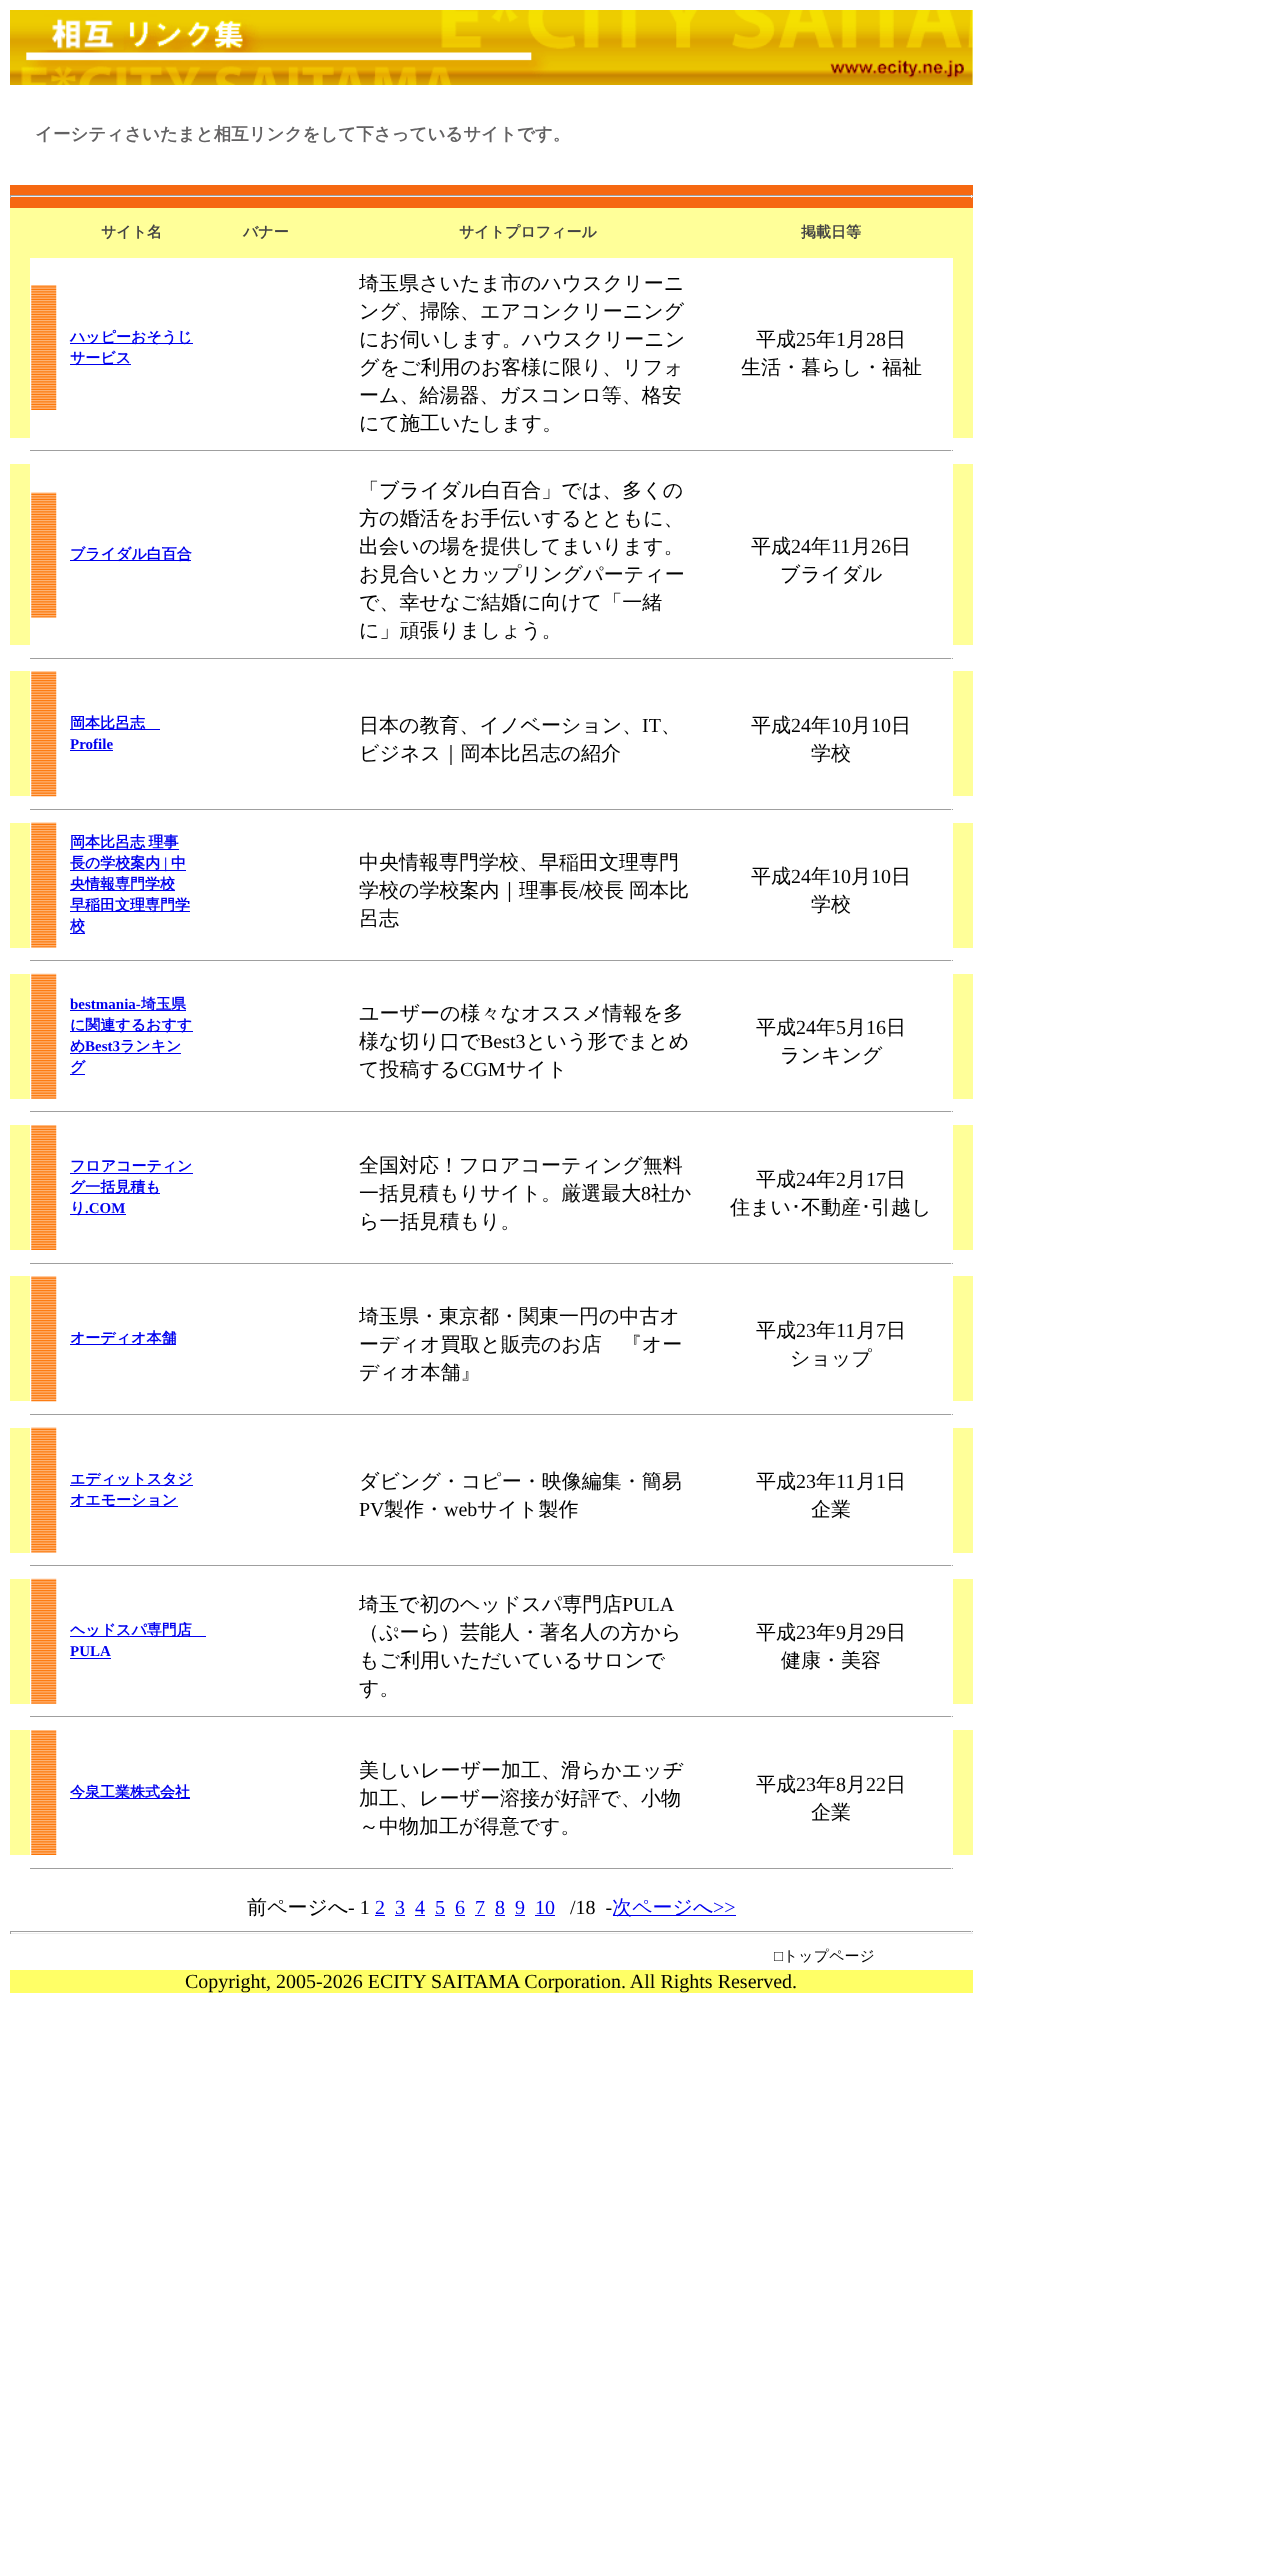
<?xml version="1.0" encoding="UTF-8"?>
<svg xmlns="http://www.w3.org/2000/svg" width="1272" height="2551">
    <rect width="100%" height="100%" fill="#FFFFFF"/>
    <rect x="10" y="208" width="20" height="1647" fill="#FFFF99"/>
    <rect x="953" y="10" width="20" height="1845" fill="#FFFF99"/>
    <image x="10" y="10" width="963" height="75" href="img_01.png"/>
    <rect x="953" y="85" width="20" height="100" fill="#FFFFFF"/>
    <text x="35" y="140" font-family="WenQuanYi Zen Hei" font-size="17.5" font-weight="700" fill="#636263">イーシティさいたまと相互リンクをして下さっているサイトです。</text>
    <rect x="10" y="185" width="963" height="23" fill="#F66811"/>
    <rect x="10" y="195" width="963" height="1" fill="#9F9F9F"/>
    <rect x="971" y="195" width="1" height="3" fill="#EEEEEE"/>
    <rect x="10" y="196" width="963" height="1" fill="#EEEEEE"/>
    <rect x="10" y="195" width="1" height="3" fill="#9F9F9F"/>
    <rect x="30" y="208" width="923" height="50" fill="#FFFF99"/>
    <text x="101" y="237" font-family="WenQuanYi Zen Hei" font-size="15" font-weight="700" fill="#444444">サイト名</text>
    <text x="243" y="237" font-family="WenQuanYi Zen Hei" font-size="15" font-weight="700" fill="#444444">バナー</text>
    <text x="459" y="237" font-family="WenQuanYi Zen Hei" font-size="15" font-weight="700" fill="#444444">サイトプロフィール</text>
    <text x="801" y="237" font-family="WenQuanYi Zen Hei" font-size="15" font-weight="700" fill="#444444">掲載日等</text>
    <image x="31" y="285" width="26" height="125" href="img_02.png"/>
    <rect x="70" y="343" width="123" height="1" fill="#0000EE"/>
    <text x="70" y="342" font-family="WenQuanYi Zen Hei" font-size="15" font-weight="700" fill="#0000EE">ハッピーおそうじ</text>
    <rect x="70" y="364" width="61" height="1" fill="#0000EE"/>
    <text x="70" y="363" font-family="WenQuanYi Zen Hei" font-size="15" font-weight="700" fill="#0000EE">サービス</text>
    <text font-family="WenQuanYi Zen Hei" font-size="20" font-weight="500" fill="#000000">
        <tspan x="359" y="290">埼玉県さいたま市のハウスクリーニ</tspan>
        <tspan x="359" y="318">ング、掃除、エアコンクリーニング</tspan>
        <tspan x="359" y="346">にお伺いします。ハウスクリーニン</tspan>
        <tspan x="359" y="374">グをご利用のお客様に限り、リフォ</tspan>
        <tspan x="359" y="402">ーム、給湯器、ガスコンロ等、格安</tspan>
        <tspan x="359" y="430">にて施工いたします。</tspan>
    </text>
    <text x="756" y="346" font-family="WenQuanYi Zen Hei" font-size="20" font-weight="500" fill="#000000">平成</text>
    <text x="796" y="346" font-family="Liberation Serif" font-size="20" fill="#000000">25</text>
    <text x="816" y="346" font-family="WenQuanYi Zen Hei" font-size="20" font-weight="500" fill="#000000">年</text>
    <text x="836" y="346" font-family="Liberation Serif" font-size="20" fill="#000000">1</text>
    <text x="846" y="346" font-family="WenQuanYi Zen Hei" font-size="20" font-weight="500" fill="#000000">月</text>
    <text x="866" y="346" font-family="Liberation Serif" font-size="20" fill="#000000">28</text>
    <text x="886" y="346" font-family="WenQuanYi Zen Hei" font-size="20" font-weight="500" fill="#000000">日</text>
    <text x="741" y="374" font-family="WenQuanYi Zen Hei" font-size="20" font-weight="500" fill="#000000">生活・暮らし・福祉</text>
    <rect x="10" y="438" width="20" height="26" fill="#FFFFFF"/>
    <rect x="30" y="450" width="923" height="1" fill="#9F9F9F"/>
    <rect x="951" y="450" width="1" height="1" fill="#EEEEEE"/>
    <rect x="953" y="438" width="20" height="26" fill="#FFFFFF"/>
    <image x="31" y="492" width="26" height="126" href="img_03.png"/>
    <rect x="70" y="560" width="121" height="1" fill="#0000EE"/>
    <text x="70" y="559" font-family="WenQuanYi Zen Hei" font-size="15" font-weight="700" fill="#0000EE">ブライダル白百合</text>
    <text font-family="WenQuanYi Zen Hei" font-size="20" font-weight="500" fill="#000000">
        <tspan x="359" y="497">「ブライダル白百合」では、多くの</tspan>
        <tspan x="359" y="525">方の婚活をお手伝いするとともに、</tspan>
        <tspan x="359" y="553">出会いの場を提供してまいります。</tspan>
        <tspan x="359" y="581">お見合いとカップリングパーティー</tspan>
        <tspan x="359" y="609">で、幸せなご結婚に向けて「一緒</tspan>
        <tspan x="359" y="637">に」頑張りましょう。</tspan>
    </text>
    <text x="751" y="553" font-family="WenQuanYi Zen Hei" font-size="20" font-weight="500" fill="#000000">平成</text>
    <text x="791" y="553" font-family="Liberation Serif" font-size="20" fill="#000000">24</text>
    <text x="811" y="553" font-family="WenQuanYi Zen Hei" font-size="20" font-weight="500" fill="#000000">年</text>
    <text x="831" y="553" font-family="Liberation Serif" font-size="20" fill="#000000">11</text>
    <text x="851" y="553" font-family="WenQuanYi Zen Hei" font-size="20" font-weight="500" fill="#000000">月</text>
    <text x="871" y="553" font-family="Liberation Serif" font-size="20" fill="#000000">26</text>
    <text x="891" y="553" font-family="WenQuanYi Zen Hei" font-size="20" font-weight="500" fill="#000000">日</text>
    <text x="780" y="581" font-family="WenQuanYi Zen Hei" font-size="20" font-weight="500" fill="#000000">ブライダル</text>
    <rect x="10" y="645" width="20" height="26" fill="#FFFFFF"/>
    <rect x="30" y="658" width="923" height="1" fill="#9F9F9F"/>
    <rect x="951" y="658" width="1" height="1" fill="#EEEEEE"/>
    <rect x="953" y="645" width="20" height="26" fill="#FFFFFF"/>
    <image x="31" y="671" width="26" height="126" href="img_04.png"/>
    <rect x="70" y="729" width="90" height="1" fill="#0000EE"/>
    <text x="70" y="728" font-family="WenQuanYi Zen Hei" font-size="15" font-weight="700" fill="#0000EE">岡本比呂志</text>
    <text x="70" y="749" font-family="Liberation Serif" font-size="15" font-weight="700" fill="#0000EE">Profile</text>
    <rect x="70" y="750" width="43" height="1" fill="#0000EE"/>
    <text x="359" y="732" font-family="WenQuanYi Zen Hei" font-size="20" font-weight="500" fill="#000000">日本の教育、イノベーション、</text>
    <text x="642" y="732" font-family="Liberation Serif" font-size="20" fill="#000000">IT</text>
    <text x="661" y="732" font-family="WenQuanYi Zen Hei" font-size="20" font-weight="500" fill="#000000">、</text>
    <text x="359" y="760" font-family="WenQuanYi Zen Hei" font-size="20" font-weight="500" fill="#000000">ビジネス｜岡本比呂志の紹介</text>
    <text x="751" y="732" font-family="WenQuanYi Zen Hei" font-size="20" font-weight="500" fill="#000000">平成</text>
    <text x="791" y="732" font-family="Liberation Serif" font-size="20" fill="#000000">24</text>
    <text x="811" y="732" font-family="WenQuanYi Zen Hei" font-size="20" font-weight="500" fill="#000000">年</text>
    <text x="831" y="732" font-family="Liberation Serif" font-size="20" fill="#000000">10</text>
    <text x="851" y="732" font-family="WenQuanYi Zen Hei" font-size="20" font-weight="500" fill="#000000">月</text>
    <text x="871" y="732" font-family="Liberation Serif" font-size="20" fill="#000000">10</text>
    <text x="891" y="732" font-family="WenQuanYi Zen Hei" font-size="20" font-weight="500" fill="#000000">日</text>
    <text x="811" y="760" font-family="WenQuanYi Zen Hei" font-size="20" font-weight="500" fill="#000000">学校</text>
    <rect x="10" y="796" width="20" height="27" fill="#FFFFFF"/>
    <rect x="30" y="809" width="923" height="1" fill="#9F9F9F"/>
    <rect x="951" y="809" width="1" height="1" fill="#EEEEEE"/>
    <rect x="953" y="796" width="20" height="27" fill="#FFFFFF"/>
    <image x="31" y="822" width="26" height="126" href="img_03.png"/>
    <text x="70" y="847" word-spacing="-1" font-family="WenQuanYi Zen Hei" font-size="15" font-weight="700" fill="#0000EE">岡本比呂志 理事</text>
    <rect x="70" y="849" width="109" height="1" fill="#0000EE"/>
    <rect x="70" y="870" width="116" height="1" fill="#0000EE"/>
    <text x="70" y="868" font-family="WenQuanYi Zen Hei" font-size="15" font-weight="700" fill="#0000EE">長の学校案内</text>
    <text x="164" y="868" font-family="Liberation Serif" font-size="15" font-weight="700" fill="#0000EE">|</text>
    <text x="171" y="868" font-family="WenQuanYi Zen Hei" font-size="15" font-weight="700" fill="#0000EE">中</text>
    <rect x="70" y="890" width="105" height="1" fill="#0000EE"/>
    <text x="70" y="889" font-family="WenQuanYi Zen Hei" font-size="15" font-weight="700" fill="#0000EE">央情報専門学校</text>
    <rect x="70" y="911" width="120" height="1" fill="#0000EE"/>
    <text x="70" y="910" font-family="WenQuanYi Zen Hei" font-size="15" font-weight="700" fill="#0000EE">早稲田文理専門学</text>
    <rect x="70" y="933" width="15" height="1" fill="#0000EE"/>
    <text x="70" y="931" font-family="WenQuanYi Zen Hei" font-size="15" font-weight="700" fill="#0000EE">校</text>
    <text font-family="WenQuanYi Zen Hei" font-size="20" font-weight="500" fill="#000000">
        <tspan x="359" y="869">中央情報専門学校、早稲田文理専門</tspan>
        <tspan x="359" y="897">学校の学校案内｜理事長</tspan>
    </text>
    <text x="579" y="897" font-family="Liberation Serif" font-size="20" fill="#000000">/</text>
    <text x="584" y="897" word-spacing="-1" font-family="WenQuanYi Zen Hei" font-size="20" font-weight="500" fill="#000000">校長 岡本比</text>
    <text x="359" y="925" font-family="WenQuanYi Zen Hei" font-size="20" font-weight="500" fill="#000000">呂志</text>
    <text x="751" y="883" font-family="WenQuanYi Zen Hei" font-size="20" font-weight="500" fill="#000000">平成</text>
    <text x="791" y="883" font-family="Liberation Serif" font-size="20" fill="#000000">24</text>
    <text x="811" y="883" font-family="WenQuanYi Zen Hei" font-size="20" font-weight="500" fill="#000000">年</text>
    <text x="831" y="883" font-family="Liberation Serif" font-size="20" fill="#000000">10</text>
    <text x="851" y="883" font-family="WenQuanYi Zen Hei" font-size="20" font-weight="500" fill="#000000">月</text>
    <text x="871" y="883" font-family="Liberation Serif" font-size="20" fill="#000000">10</text>
    <text x="891" y="883" font-family="WenQuanYi Zen Hei" font-size="20" font-weight="500" fill="#000000">日</text>
    <text x="811" y="911" font-family="WenQuanYi Zen Hei" font-size="20" font-weight="500" fill="#000000">学校</text>
    <rect x="10" y="948" width="20" height="26" fill="#FFFFFF"/>
    <rect x="30" y="960" width="923" height="1" fill="#9F9F9F"/>
    <rect x="951" y="960" width="1" height="1" fill="#EEEEEE"/>
    <rect x="953" y="948" width="20" height="26" fill="#FFFFFF"/>
    <image x="31" y="973" width="26" height="126" href="img_05.png"/>
    <text x="70" y="1009" font-family="Liberation Serif" font-size="15" font-weight="700" fill="#0000EE">bestmania-</text>
    <rect x="70" y="1010" width="116" height="1" fill="#0000EE"/>
    <text x="141" y="1009" font-family="WenQuanYi Zen Hei" font-size="15" font-weight="700" fill="#0000EE">埼玉県</text>
    <rect x="70" y="1031" width="123" height="1" fill="#0000EE"/>
    <text font-family="WenQuanYi Zen Hei" font-size="15" font-weight="700" fill="#0000EE">
        <tspan x="70" y="1030">に関連するおすす</tspan>
        <tspan x="70" y="1051">め</tspan>
    </text>
    <rect x="70" y="1053" width="111" height="1" fill="#0000EE"/>
    <text x="85" y="1051" font-family="Liberation Serif" font-size="15" font-weight="700" fill="#0000EE">Best3</text>
    <text x="120" y="1051" font-family="WenQuanYi Zen Hei" font-size="15" font-weight="700" fill="#0000EE">ランキン</text>
    <text x="70" y="1072" font-family="WenQuanYi Zen Hei" font-size="15" font-weight="700" fill="#0000EE">グ</text>
    <rect x="70" y="1074" width="15" height="1" fill="#0000EE"/>
    <text font-family="WenQuanYi Zen Hei" font-size="20" font-weight="500" fill="#000000">
        <tspan x="359" y="1020">ユーザーの様々なオススメ情報を多</tspan>
        <tspan x="359" y="1048">様な切り口で</tspan>
    </text>
    <text x="480" y="1048" font-family="Liberation Serif" font-size="20" fill="#000000">Best3</text>
    <text x="526" y="1048" font-family="WenQuanYi Zen Hei" font-size="20" font-weight="500" fill="#000000">という形でまとめ</text>
    <text x="359" y="1076" font-family="WenQuanYi Zen Hei" font-size="20" font-weight="500" fill="#000000">て投稿する</text>
    <text x="460" y="1076" font-family="Liberation Serif" font-size="20" fill="#000000">CGM</text>
    <text x="506" y="1076" font-family="WenQuanYi Zen Hei" font-size="20" font-weight="500" fill="#000000">サイト</text>
    <text x="756" y="1034" font-family="WenQuanYi Zen Hei" font-size="20" font-weight="500" fill="#000000">平成</text>
    <text x="796" y="1034" font-family="Liberation Serif" font-size="20" fill="#000000">24</text>
    <text x="816" y="1034" font-family="WenQuanYi Zen Hei" font-size="20" font-weight="500" fill="#000000">年</text>
    <text x="836" y="1034" font-family="Liberation Serif" font-size="20" fill="#000000">5</text>
    <text x="846" y="1034" font-family="WenQuanYi Zen Hei" font-size="20" font-weight="500" fill="#000000">月</text>
    <text x="866" y="1034" font-family="Liberation Serif" font-size="20" fill="#000000">16</text>
    <text x="886" y="1034" font-family="WenQuanYi Zen Hei" font-size="20" font-weight="500" fill="#000000">日</text>
    <text x="780" y="1062" font-family="WenQuanYi Zen Hei" font-size="20" font-weight="500" fill="#000000">ランキング</text>
    <rect x="10" y="1099" width="20" height="26" fill="#FFFFFF"/>
    <rect x="30" y="1111" width="923" height="1" fill="#9F9F9F"/>
    <rect x="951" y="1111" width="1" height="1" fill="#EEEEEE"/>
    <rect x="953" y="1099" width="20" height="26" fill="#FFFFFF"/>
    <image x="31" y="1125" width="26" height="125" href="img_06.png"/>
    <text x="70" y="1171" font-family="WenQuanYi Zen Hei" font-size="15" font-weight="700" fill="#0000EE">フロアコーティン</text>
    <rect x="70" y="1173" width="123" height="1" fill="#0000EE"/>
    <rect x="70" y="1193" width="90" height="1" fill="#0000EE"/>
    <text x="70" y="1192" font-family="WenQuanYi Zen Hei" font-size="15" font-weight="700" fill="#0000EE">グ一括見積も</text>
    <rect x="70" y="1214" width="56" height="1" fill="#0000EE"/>
    <text x="70" y="1213" font-family="WenQuanYi Zen Hei" font-size="15" font-weight="700" fill="#0000EE">り</text>
    <text x="85" y="1213" font-family="Liberation Serif" font-size="15" font-weight="700" fill="#0000EE">.COM</text>
    <text font-family="WenQuanYi Zen Hei" font-size="20" font-weight="500" fill="#000000">
        <tspan x="359" y="1172">全国対応！フロアコーティング無料</tspan>
        <tspan x="359" y="1200">一括見積もりサイト。厳選最大</tspan>
    </text>
    <text x="641" y="1200" font-family="Liberation Serif" font-size="20" fill="#000000">8</text>
    <text x="651" y="1200" font-family="WenQuanYi Zen Hei" font-size="20" font-weight="500" fill="#000000">社か</text>
    <text x="359" y="1228" font-family="WenQuanYi Zen Hei" font-size="20" font-weight="500" fill="#000000">ら一括見積もり。</text>
    <text x="756" y="1186" font-family="WenQuanYi Zen Hei" font-size="20" font-weight="500" fill="#000000">平成</text>
    <text x="796" y="1186" font-family="Liberation Serif" font-size="20" fill="#000000">24</text>
    <text x="816" y="1186" font-family="WenQuanYi Zen Hei" font-size="20" font-weight="500" fill="#000000">年</text>
    <text x="836" y="1186" font-family="Liberation Serif" font-size="20" fill="#000000">2</text>
    <text x="846" y="1186" font-family="WenQuanYi Zen Hei" font-size="20" font-weight="500" fill="#000000">月</text>
    <text x="866" y="1186" font-family="Liberation Serif" font-size="20" fill="#000000">17</text>
    <text x="886" y="1186" font-family="WenQuanYi Zen Hei" font-size="20" font-weight="500" fill="#000000">日</text>
    <text x="730" y="1214" font-family="WenQuanYi Zen Hei" font-size="20" font-weight="500" fill="#000000">住まい</text>
    <text x="791" y="1214" font-family="IPAGothic" font-size="20" fill="#000000">･</text>
    <text x="801" y="1214" font-family="WenQuanYi Zen Hei" font-size="20" font-weight="500" fill="#000000">不動産</text>
    <text x="861" y="1214" font-family="IPAGothic" font-size="20" fill="#000000">･</text>
    <text x="871" y="1214" font-family="WenQuanYi Zen Hei" font-size="20" font-weight="500" fill="#000000">引越し</text>
    <rect x="10" y="1250" width="20" height="26" fill="#FFFFFF"/>
    <rect x="30" y="1263" width="923" height="1" fill="#9F9F9F"/>
    <rect x="951" y="1263" width="1" height="1" fill="#EEEEEE"/>
    <rect x="953" y="1250" width="20" height="26" fill="#FFFFFF"/>
    <image x="31" y="1276" width="26" height="126" href="img_04.png"/>
    <rect x="70" y="1344" width="106" height="1" fill="#0000EE"/>
    <text x="70" y="1343" font-family="WenQuanYi Zen Hei" font-size="15" font-weight="700" fill="#0000EE">オーディオ本舗</text>
    <text font-family="WenQuanYi Zen Hei" font-size="20" font-weight="500" fill="#000000">
        <tspan x="359" y="1323">埼玉県・東京都・関東一円の中古オ</tspan>
        <tspan x="359" y="1351">ーディオ買取と販売のお店　『オー</tspan>
        <tspan x="359" y="1379">ディオ本舗』</tspan>
    </text>
    <text x="756" y="1337" font-family="WenQuanYi Zen Hei" font-size="20" font-weight="500" fill="#000000">平成</text>
    <text x="796" y="1337" font-family="Liberation Serif" font-size="20" fill="#000000">23</text>
    <text x="816" y="1337" font-family="WenQuanYi Zen Hei" font-size="20" font-weight="500" fill="#000000">年</text>
    <text x="836" y="1337" font-family="Liberation Serif" font-size="20" fill="#000000">11</text>
    <text x="856" y="1337" font-family="WenQuanYi Zen Hei" font-size="20" font-weight="500" fill="#000000">月</text>
    <text x="876" y="1337" font-family="Liberation Serif" font-size="20" fill="#000000">7</text>
    <text x="886" y="1337" font-family="WenQuanYi Zen Hei" font-size="20" font-weight="500" fill="#000000">日</text>
    <text x="790" y="1365" font-family="WenQuanYi Zen Hei" font-size="20" font-weight="500" fill="#000000">ショップ</text>
    <rect x="10" y="1401" width="20" height="27" fill="#FFFFFF"/>
    <rect x="30" y="1414" width="923" height="1" fill="#9F9F9F"/>
    <rect x="951" y="1414" width="1" height="1" fill="#EEEEEE"/>
    <rect x="953" y="1401" width="20" height="27" fill="#FFFFFF"/>
    <image x="31" y="1427" width="26" height="126" href="img_03.png"/>
    <rect x="70" y="1485" width="123" height="1" fill="#0000EE"/>
    <text x="70" y="1484" font-family="WenQuanYi Zen Hei" font-size="15" font-weight="700" fill="#0000EE">エディットスタジ</text>
    <rect x="70" y="1506" width="108" height="1" fill="#0000EE"/>
    <text x="70" y="1505" font-family="WenQuanYi Zen Hei" font-size="15" font-weight="700" fill="#0000EE">オエモーション</text>
    <text x="359" y="1488" font-family="WenQuanYi Zen Hei" font-size="20" font-weight="500" fill="#000000">ダビング・コピー・映像編集・簡易</text>
    <text x="359" y="1516" font-family="Liberation Serif" font-size="20" fill="#000000">PV</text>
    <text x="384" y="1516" font-family="WenQuanYi Zen Hei" font-size="20" font-weight="500" fill="#000000">製作・</text>
    <text x="444" y="1516" font-family="Liberation Serif" font-size="20" fill="#000000">web</text>
    <text x="477" y="1516" font-family="WenQuanYi Zen Hei" font-size="20" font-weight="500" fill="#000000">サイト製作</text>
    <text x="756" y="1488" font-family="WenQuanYi Zen Hei" font-size="20" font-weight="500" fill="#000000">平成</text>
    <text x="796" y="1488" font-family="Liberation Serif" font-size="20" fill="#000000">23</text>
    <text x="816" y="1488" font-family="WenQuanYi Zen Hei" font-size="20" font-weight="500" fill="#000000">年</text>
    <text x="836" y="1488" font-family="Liberation Serif" font-size="20" fill="#000000">11</text>
    <text x="856" y="1488" font-family="WenQuanYi Zen Hei" font-size="20" font-weight="500" fill="#000000">月</text>
    <text x="876" y="1488" font-family="Liberation Serif" font-size="20" fill="#000000">1</text>
    <text x="886" y="1488" font-family="WenQuanYi Zen Hei" font-size="20" font-weight="500" fill="#000000">日</text>
    <text x="811" y="1516" font-family="WenQuanYi Zen Hei" font-size="20" font-weight="500" fill="#000000">企業</text>
    <rect x="10" y="1553" width="20" height="26" fill="#FFFFFF"/>
    <rect x="30" y="1565" width="923" height="1" fill="#9F9F9F"/>
    <rect x="951" y="1565" width="1" height="1" fill="#EEEEEE"/>
    <rect x="953" y="1553" width="20" height="26" fill="#FFFFFF"/>
    <image x="31" y="1578" width="26" height="126" href="img_05.png"/>
    <rect x="70" y="1636" width="121" height="1" fill="#0000EE"/>
    <text x="70" y="1635" font-family="WenQuanYi Zen Hei" font-size="15" font-weight="700" fill="#0000EE">ヘッドスパ専門店</text>
    <rect x="191" y="1636" width="15" height="1" fill="#0000EE"/>
    <text x="70" y="1656" font-family="Liberation Serif" font-size="15" font-weight="700" fill="#0000EE">PULA</text>
    <rect x="70" y="1658" width="41" height="1" fill="#0000EE"/>
    <text x="359" y="1611" font-family="WenQuanYi Zen Hei" font-size="20" font-weight="500" fill="#000000">埼玉で初のヘッドスパ専門店</text>
    <text x="622" y="1611" font-family="Liberation Serif" font-size="20" fill="#000000">PULA</text>
    <text font-family="WenQuanYi Zen Hei" font-size="20" font-weight="500" fill="#000000">
        <tspan x="359" y="1639">（ぷーら）芸能人・著名人の方から</tspan>
        <tspan x="359" y="1667">もご利用いただいているサロンで</tspan>
        <tspan x="359" y="1695">す。</tspan>
    </text>
    <text x="756" y="1639" font-family="WenQuanYi Zen Hei" font-size="20" font-weight="500" fill="#000000">平成</text>
    <text x="796" y="1639" font-family="Liberation Serif" font-size="20" fill="#000000">23</text>
    <text x="816" y="1639" font-family="WenQuanYi Zen Hei" font-size="20" font-weight="500" fill="#000000">年</text>
    <text x="836" y="1639" font-family="Liberation Serif" font-size="20" fill="#000000">9</text>
    <text x="846" y="1639" font-family="WenQuanYi Zen Hei" font-size="20" font-weight="500" fill="#000000">月</text>
    <text x="866" y="1639" font-family="Liberation Serif" font-size="20" fill="#000000">29</text>
    <text x="886" y="1639" font-family="WenQuanYi Zen Hei" font-size="20" font-weight="500" fill="#000000">日</text>
    <text x="781" y="1667" font-family="WenQuanYi Zen Hei" font-size="20" font-weight="500" fill="#000000">健康・美容</text>
    <rect x="10" y="1704" width="20" height="26" fill="#FFFFFF"/>
    <rect x="30" y="1716" width="923" height="1" fill="#9F9F9F"/>
    <rect x="951" y="1716" width="1" height="1" fill="#EEEEEE"/>
    <rect x="953" y="1704" width="20" height="26" fill="#FFFFFF"/>
    <image x="31" y="1730" width="26" height="125" href="img_07.png"/>
    <rect x="70" y="1798" width="120" height="1" fill="#0000EE"/>
    <text x="70" y="1797" font-family="WenQuanYi Zen Hei" font-size="15" font-weight="700" fill="#0000EE">今泉工業株式会社</text>
    <text font-family="WenQuanYi Zen Hei" font-size="20" font-weight="500" fill="#000000">
        <tspan x="359" y="1777">美しいレーザー加工、滑らかエッヂ</tspan>
        <tspan x="359" y="1805">加工、レーザー溶接が好評で、小物</tspan>
        <tspan x="359" y="1833">～中物加工が得意です。</tspan>
    </text>
    <text x="756" y="1791" font-family="WenQuanYi Zen Hei" font-size="20" font-weight="500" fill="#000000">平成</text>
    <text x="796" y="1791" font-family="Liberation Serif" font-size="20" fill="#000000">23</text>
    <text x="816" y="1791" font-family="WenQuanYi Zen Hei" font-size="20" font-weight="500" fill="#000000">年</text>
    <text x="836" y="1791" font-family="Liberation Serif" font-size="20" fill="#000000">8</text>
    <text x="846" y="1791" font-family="WenQuanYi Zen Hei" font-size="20" font-weight="500" fill="#000000">月</text>
    <text x="866" y="1791" font-family="Liberation Serif" font-size="20" fill="#000000">22</text>
    <text x="886" y="1791" font-family="WenQuanYi Zen Hei" font-size="20" font-weight="500" fill="#000000">日</text>
    <text x="811" y="1819" font-family="WenQuanYi Zen Hei" font-size="20" font-weight="500" fill="#000000">企業</text>
    <rect x="30" y="1868" width="923" height="1" fill="#9F9F9F"/>
    <rect x="951" y="1868" width="1" height="1" fill="#EEEEEE"/>
    <text x="247" y="1914" font-family="WenQuanYi Zen Hei" font-size="20" font-weight="500" fill="#000000">前ページへ</text>
    <text x="348" y="1914" font-family="Liberation Serif" font-size="20" fill="#000000">- 1</text>
    <text x="375" y="1914" font-family="Liberation Serif" font-size="20" fill="#0000EE">2</text>
    <rect x="375" y="1915" width="10" height="1" fill="#0000EE"/>
    <text x="395" y="1914" font-family="Liberation Serif" font-size="20" fill="#0000EE">3</text>
    <rect x="395" y="1915" width="10" height="1" fill="#0000EE"/>
    <text x="415" y="1914" font-family="Liberation Serif" font-size="20" fill="#0000EE">4</text>
    <rect x="415" y="1915" width="10" height="1" fill="#0000EE"/>
    <text x="435" y="1914" font-family="Liberation Serif" font-size="20" fill="#0000EE">5</text>
    <rect x="435" y="1915" width="10" height="1" fill="#0000EE"/>
    <text x="455" y="1914" font-family="Liberation Serif" font-size="20" fill="#0000EE">6</text>
    <rect x="455" y="1915" width="10" height="1" fill="#0000EE"/>
    <text x="475" y="1914" font-family="Liberation Serif" font-size="20" fill="#0000EE">7</text>
    <rect x="475" y="1915" width="10" height="1" fill="#0000EE"/>
    <text x="495" y="1914" font-family="Liberation Serif" font-size="20" fill="#0000EE">8</text>
    <rect x="495" y="1915" width="10" height="1" fill="#0000EE"/>
    <text x="515" y="1914" font-family="Liberation Serif" font-size="20" fill="#0000EE">9</text>
    <rect x="515" y="1915" width="10" height="1" fill="#0000EE"/>
    <text x="535" y="1914" font-family="Liberation Serif" font-size="20" fill="#0000EE">10</text>
    <rect x="535" y="1915" width="20" height="1" fill="#0000EE"/>
    <text x="570" y="1914" font-family="Liberation Serif" font-size="20" fill="#000000" xml:space="preserve">/18  -</text>
    <rect x="613" y="1915" width="123" height="1" fill="#0000EE"/>
    <text x="612" y="1914" font-family="WenQuanYi Zen Hei" font-size="20" font-weight="500" fill="#0000EE">次ページへ</text>
    <text x="713" y="1914" font-family="Liberation Serif" font-size="20" fill="#0000EE">&gt;&gt;</text>
    <rect x="10" y="1931" width="963" height="1" fill="#9F9F9F"/>
    <rect x="971" y="1931" width="1" height="3" fill="#EEEEEE"/>
    <rect x="10" y="1933" width="963" height="1" fill="#EEEEEE"/>
    <rect x="10" y="1931" width="1" height="3" fill="#9F9F9F"/>
    <text x="774" y="1961" font-family="Liberation Serif" font-size="15" fill="#000000">□</text>
    <text x="783" y="1961" font-family="WenQuanYi Zen Hei" font-size="15" font-weight="500" fill="#000000">トップページ</text>
    <rect x="10" y="1970" width="963" height="23" fill="#FFFF66"/>
    <text x="185" y="1988" font-family="Liberation Serif" font-size="20" fill="#000000">Copyright, 2005-2026 ECITY SAITAMA Corporation. All Rights Reserved.</text>
</svg>
